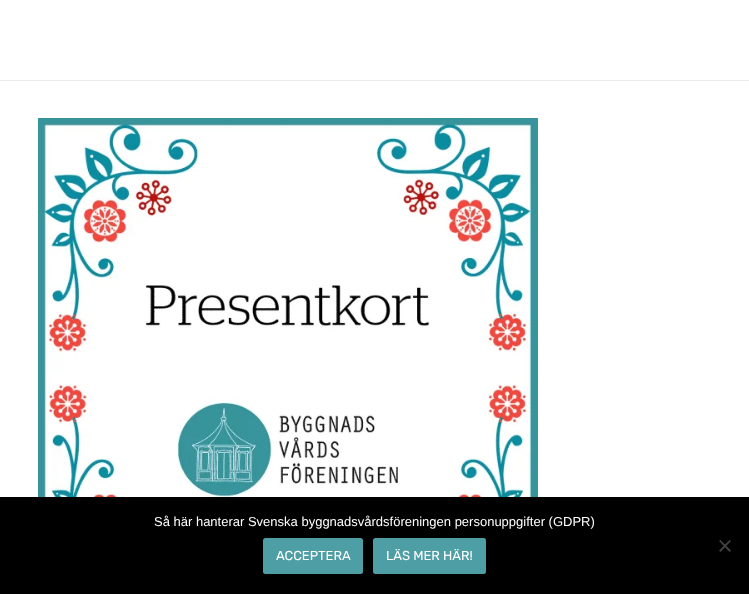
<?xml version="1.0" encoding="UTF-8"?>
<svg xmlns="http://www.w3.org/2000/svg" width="749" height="594">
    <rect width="100%" height="100%" fill="#FFFFFF"/>
    <rect x="0" y="80" width="749" height="1" fill="#EBEBEB"/>
    <image x="38" y="118" width="500" height="379" href="img_01.png"/>
    <rect x="0" y="497" width="749" height="97" fill="#000000"/>
    <text x="154" y="526" font-family="Liberation Sans" font-size="13" fill="#FFFFFF">Så här hanterar Svenska byggnadsvårdsföreningen personuppgifter (GDPR)</text>
    <path d="M 729.5 540 L 731 541 L 720.5 552 L 719 550.5 Z" fill="#404040"/>
    <path d="M 719 541 L 720.5 540 L 731 550.5 L 729.5 552 Z" fill="#404040"/>
    <rect x="263" y="538" width="100" height="36" rx="2.5" fill="#4E9EA6"/>
    <text x="276" y="560" font-family="Rubik" font-size="13" fill="#FFFFFF">ACCEPTERA</text>
    <rect x="373" y="538" width="113" height="36" rx="2.5" fill="#4E9EA6"/>
    <text x="386" y="560" font-family="Rubik" font-size="13" fill="#FFFFFF">LÄS MER HÄR!</text>
</svg>
